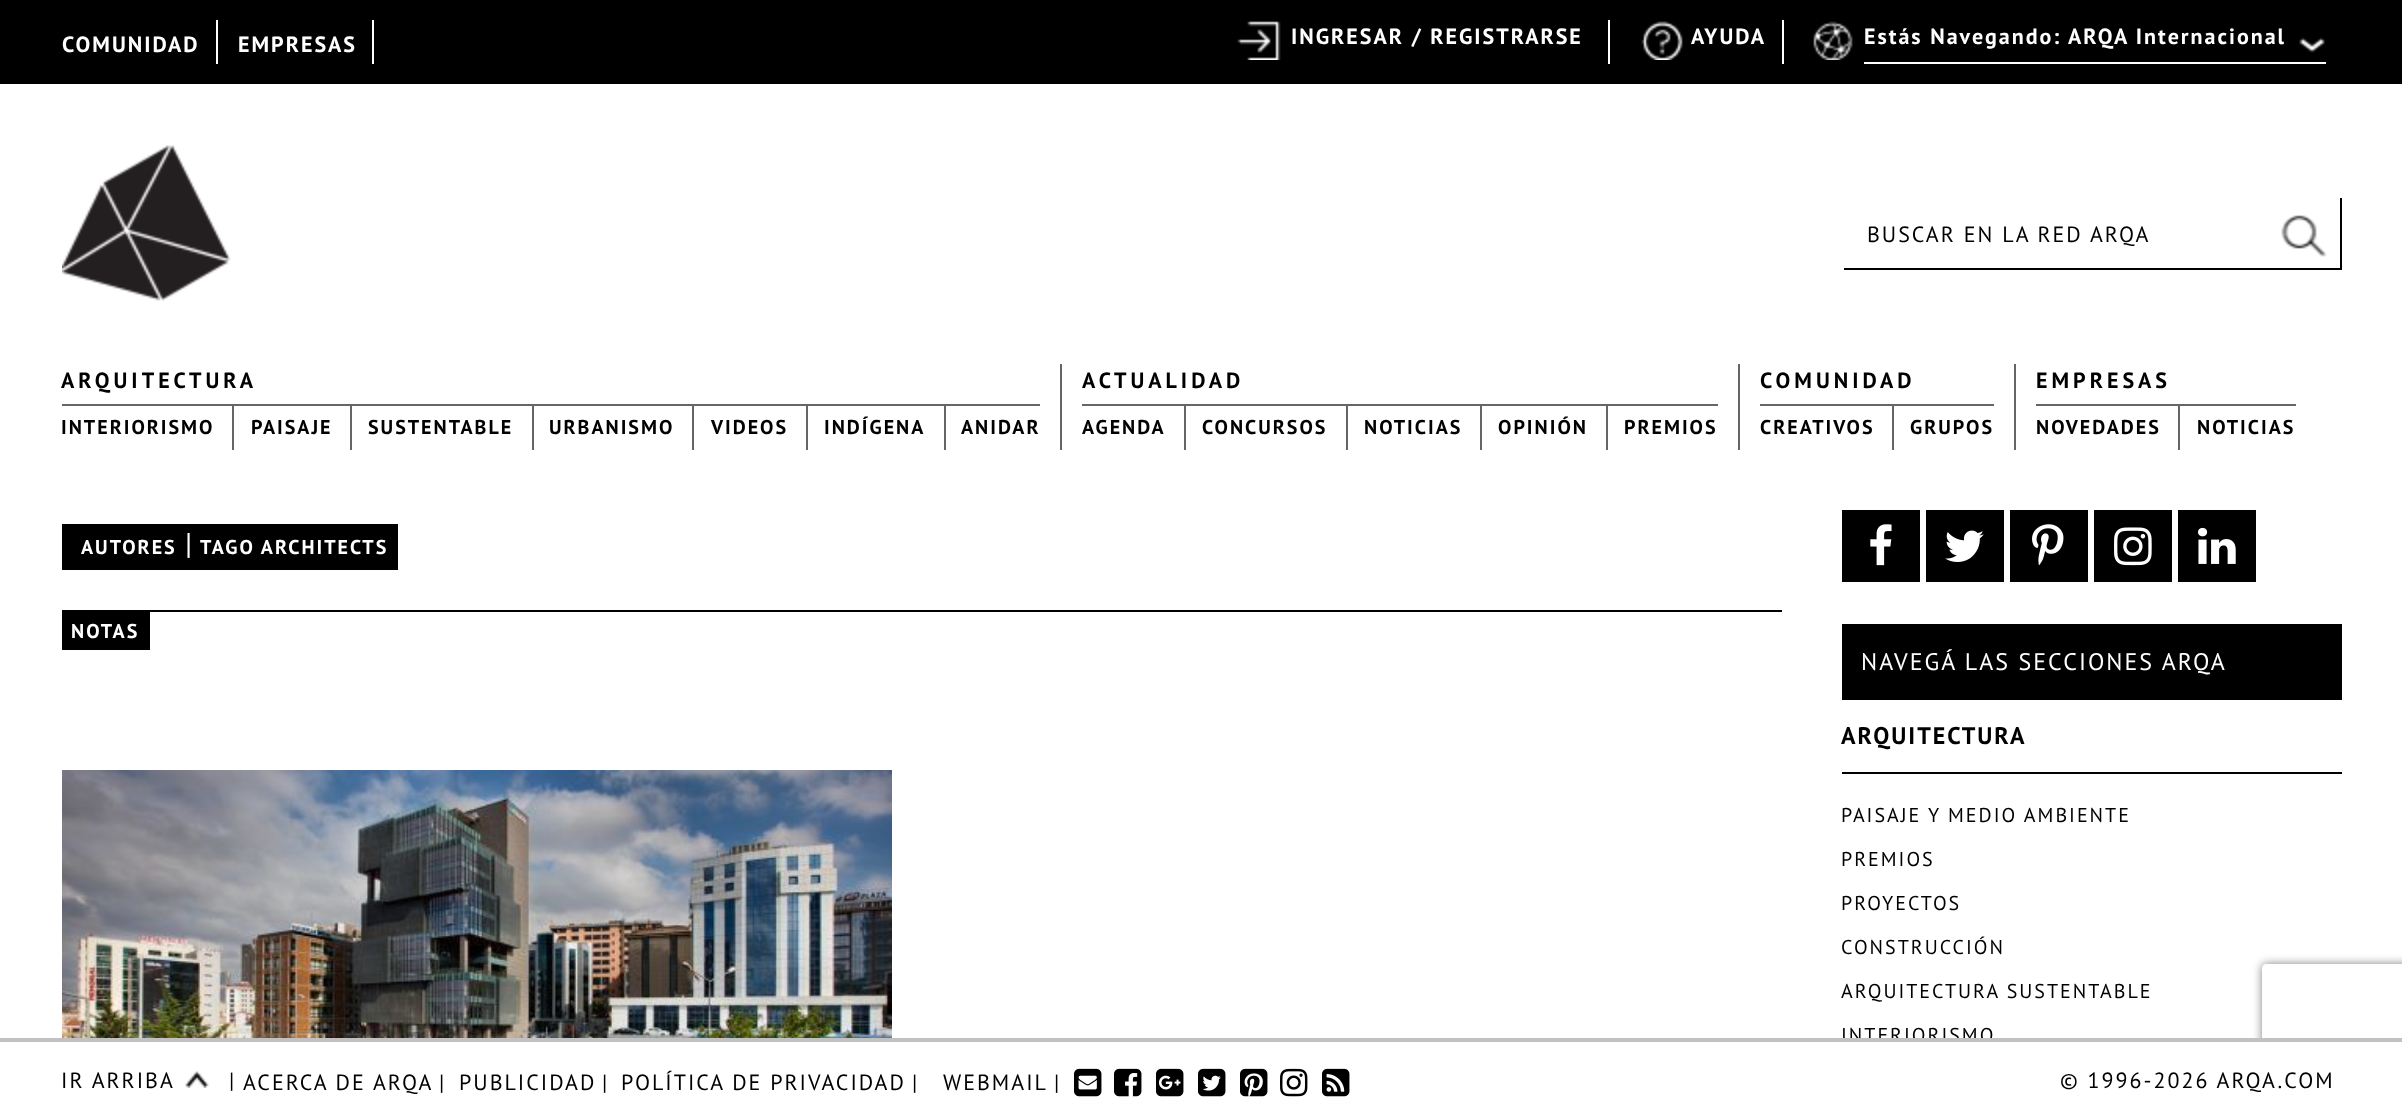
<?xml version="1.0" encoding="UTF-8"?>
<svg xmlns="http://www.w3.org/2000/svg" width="2402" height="1112">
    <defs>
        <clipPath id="clip1"><path d="M 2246 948 H 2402 V 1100 H 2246 Z M 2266 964 H 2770 C 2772 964 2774 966 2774 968 V 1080 C 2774 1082 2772 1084 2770 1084 H 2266 C 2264 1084 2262 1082 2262 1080 V 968 C 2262 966 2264 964 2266 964 Z" clip-rule="evenodd"/></clipPath>
        <filter id="blur1" x="-50%" y="-200%" width="200%" height="500%"><feGaussianBlur stdDeviation="5"/></filter>
    </defs>
    <rect width="100%" height="100%" fill="#FFFFFF"/>
    <rect x="0" y="0" width="2402" height="84" fill="#000000"/>
    <rect x="216" y="20" width="2" height="44" fill="#FFFFFF"/>
    <text x="62" y="52" font-family="PT Sans" font-size="22" font-weight="700" letter-spacing="2" fill="#FFFFFF">COMUNIDAD</text>
    <rect x="372" y="20" width="2" height="44" fill="#FFFFFF"/>
    <text x="238" y="52" font-family="PT Sans" font-size="22" font-weight="700" letter-spacing="2" fill="#FFFFFF">EMPRESAS</text>
    <rect x="1608" y="20" width="2" height="44" fill="#FFFFFF"/>
    <image x="1237" y="21" width="44" height="39" href="img_01.png"/>
    <text x="1291" y="44" font-family="PT Sans" font-size="22" font-weight="700" letter-spacing="2" fill="#FFFFFF">INGRESAR / REGISTRARSE</text>
    <rect x="1782" y="20" width="2" height="44" fill="#FFFFFF"/>
    <image x="1641" y="21" width="42" height="39" href="img_02.png"/>
    <text x="1691" y="44" font-family="PT Sans" font-size="22" font-weight="700" letter-spacing="2" fill="#FFFFFF">AYUDA</text>
    <image x="1813" y="21" width="40" height="39" href="img_03.png"/>
    <rect x="1864" y="62" width="462" height="2" fill="#FFFFFF"/>
    <text x="1864" y="44" font-family="PT Sans" font-size="22" font-weight="700" letter-spacing="2" fill="#FFFFFF">Estás Navegando: ARQA Internacional</text>
    <image x="2299" y="37" width="26" height="16" href="img_04.png"/>
    <image x="62" y="145" width="169" height="156" href="img_05.png"/>
    <rect x="2340" y="198" width="2" height="72" fill="#000000"/>
    <rect x="1844" y="268" width="498" height="2" fill="#000000"/>
    <text x="1867" y="242" font-family="PT Sans" font-size="22" letter-spacing="2" fill="#000000">BUSCAR EN LA RED ARQA</text>
    <image x="2281" y="215" width="46" height="42" href="img_06.png"/>
    <rect x="1060" y="364" width="2" height="86" fill="#666666"/>
    <text x="61" y="388" font-family="PT Sans" font-size="22" font-weight="700" letter-spacing="4" fill="#000000">ARQUITECTURA</text>
    <rect x="62" y="404" width="978" height="2" fill="#666666"/>
    <rect x="232" y="404" width="2" height="46" fill="#666666"/>
    <text x="61" y="434" font-family="PT Sans" font-size="20" font-weight="700" letter-spacing="2" fill="#000000">INTERIORISMO</text>
    <rect x="350" y="404" width="2" height="46" fill="#666666"/>
    <text x="251" y="434" font-family="PT Sans" font-size="20" font-weight="700" letter-spacing="2" fill="#000000">PAISAJE</text>
    <rect x="532" y="404" width="2" height="46" fill="#666666"/>
    <text x="368" y="434" font-family="PT Sans" font-size="20" font-weight="700" letter-spacing="2" fill="#000000">SUSTENTABLE</text>
    <rect x="692" y="404" width="2" height="46" fill="#666666"/>
    <text x="549" y="434" font-family="PT Sans" font-size="20" font-weight="700" letter-spacing="2" fill="#000000">URBANISMO</text>
    <rect x="806" y="404" width="2" height="46" fill="#666666"/>
    <text x="711" y="434" font-family="PT Sans" font-size="20" font-weight="700" letter-spacing="2" fill="#000000">VIDEOS</text>
    <rect x="944" y="404" width="2" height="46" fill="#666666"/>
    <text x="824" y="434" font-family="PT Sans" font-size="20" font-weight="700" letter-spacing="2" fill="#000000">INDÍGENA</text>
    <text x="961" y="434" font-family="PT Sans" font-size="20" font-weight="700" letter-spacing="2" fill="#000000">ANIDAR</text>
    <rect x="1738" y="364" width="2" height="86" fill="#666666"/>
    <text x="1082" y="388" font-family="PT Sans" font-size="22" font-weight="700" letter-spacing="4" fill="#000000">ACTUALIDAD</text>
    <rect x="1082" y="404" width="636" height="2" fill="#666666"/>
    <rect x="1184" y="404" width="2" height="46" fill="#666666"/>
    <text x="1082" y="434" font-family="PT Sans" font-size="20" font-weight="700" letter-spacing="2" fill="#000000">AGENDA</text>
    <rect x="1346" y="404" width="2" height="46" fill="#666666"/>
    <text x="1202" y="434" font-family="PT Sans" font-size="20" font-weight="700" letter-spacing="2" fill="#000000">CONCURSOS</text>
    <rect x="1480" y="404" width="2" height="46" fill="#666666"/>
    <text x="1364" y="434" font-family="PT Sans" font-size="20" font-weight="700" letter-spacing="2" fill="#000000">NOTICIAS</text>
    <rect x="1606" y="404" width="2" height="46" fill="#666666"/>
    <text x="1498" y="434" font-family="PT Sans" font-size="20" font-weight="700" letter-spacing="2" fill="#000000">OPINIÓN</text>
    <text x="1624" y="434" font-family="PT Sans" font-size="20" font-weight="700" letter-spacing="2" fill="#000000">PREMIOS</text>
    <rect x="2014" y="364" width="2" height="86" fill="#666666"/>
    <text x="1760" y="388" font-family="PT Sans" font-size="22" font-weight="700" letter-spacing="4" fill="#000000">COMUNIDAD</text>
    <rect x="1760" y="404" width="234" height="2" fill="#666666"/>
    <rect x="1892" y="404" width="2" height="46" fill="#666666"/>
    <text x="1760" y="434" font-family="PT Sans" font-size="20" font-weight="700" letter-spacing="2" fill="#000000">CREATIVOS</text>
    <text x="1910" y="434" font-family="PT Sans" font-size="20" font-weight="700" letter-spacing="2" fill="#000000">GRUPOS</text>
    <text x="2036" y="388" font-family="PT Sans" font-size="22" font-weight="700" letter-spacing="4" fill="#000000">EMPRESAS</text>
    <rect x="2036" y="404" width="260" height="2" fill="#666666"/>
    <rect x="2178" y="404" width="2" height="46" fill="#666666"/>
    <text x="2036" y="434" font-family="PT Sans" font-size="20" font-weight="700" letter-spacing="2" fill="#000000">NOVEDADES</text>
    <text x="2197" y="434" font-family="PT Sans" font-size="20" font-weight="700" letter-spacing="2" fill="#000000">NOTICIAS</text>
    <rect x="62" y="524" width="336" height="46" fill="#000000"/>
    <text x="81" y="554" font-family="PT Sans" font-size="20" font-weight="700" letter-spacing="2" fill="#FFFFFF">AUTORES</text>
    <text x="185" y="554" font-family="PT Sans" font-size="30" fill="#FFFFFF">|</text>
    <text x="200" y="554" font-family="PT Sans" font-size="20" font-weight="700" letter-spacing="2" fill="#FFFFFF">TAGO ARCHITECTS</text>
    <rect x="62" y="610" width="1720" height="2" fill="#000000"/>
    <rect x="62" y="612" width="88" height="38" fill="#000000"/>
    <text x="71" y="638" font-family="PT Sans" font-size="20" font-weight="700" letter-spacing="2" fill="#FFFFFF">NOTAS</text>
    <image x="62" y="770" width="830" height="268" href="img_07.png"/>
    <rect x="1842" y="510" width="78" height="72" fill="#000000"/>
    <image x="1870" y="524" width="22" height="42" href="img_08.png"/>
    <rect x="1926" y="510" width="78" height="72" fill="#000000"/>
    <image x="1945" y="530" width="39" height="32" href="img_09.png"/>
    <rect x="2010" y="510" width="78" height="72" fill="#000000"/>
    <image x="2032" y="524" width="32" height="42" href="img_10.png"/>
    <rect x="2094" y="510" width="78" height="72" fill="#000000"/>
    <image x="2114" y="527" width="38" height="39" href="img_11.png"/>
    <rect x="2178" y="510" width="78" height="72" fill="#000000"/>
    <image x="2198" y="527" width="38" height="37" href="img_12.png"/>
    <rect x="1842" y="624" width="500" height="76" fill="#000000"/>
    <text x="1861" y="670" font-family="PT Sans" font-size="24" letter-spacing="2" fill="#FFFFFF">NAVEGÁ LAS SECCIONES ARQA</text>
    <rect x="1842" y="772" width="500" height="2" fill="#000000"/>
    <text x="1841" y="744" font-family="PT Sans" font-size="24" font-weight="700" letter-spacing="2" fill="#000000">ARQUITECTURA</text>
    <text x="1841" y="822" font-family="PT Sans" font-size="20" letter-spacing="2" fill="#000000">PAISAJE Y MEDIO AMBIENTE</text>
    <text x="1841" y="866" font-family="PT Sans" font-size="20" letter-spacing="2" fill="#000000">PREMIOS</text>
    <text x="1841" y="910" font-family="PT Sans" font-size="20" letter-spacing="2" fill="#000000">PROYECTOS</text>
    <text x="1841" y="954" font-family="PT Sans" font-size="20" letter-spacing="2" fill="#000000">CONSTRUCCIÓN</text>
    <text x="1841" y="998" font-family="PT Sans" font-size="20" letter-spacing="2" fill="#000000">ARQUITECTURA SUSTENTABLE</text>
    <text x="1841" y="1042" font-family="PT Sans" font-size="20" letter-spacing="2" fill="#000000">INTERIORISMO</text>
    <g clip-path="url(#clip1)">
        <rect x="2262" y="964" width="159" height="120" rx="4" fill="#808080" filter="url(#blur1)"/>
    </g>
    <rect x="1859" y="1042" width="543" height="52" fill="#FFFFFF"/>
    <rect x="0" y="1038" width="2402" height="4" fill="#C1C1C1"/>
    <text x="61" y="1088" font-family="PT Sans" font-size="22" letter-spacing="2" fill="#000000">IR ARRIBA</text>
    <image x="185" y="1071" width="24" height="17" href="img_13.png"/>
    <text x="229" y="1088" font-family="PT Sans" font-size="22" letter-spacing="2" fill="#000000">|</text>
    <text x="243" y="1090" font-family="PT Sans" font-size="22" letter-spacing="2" fill="#000000">ACERCA DE ARQA</text>
    <text x="439" y="1090" font-family="PT Sans" font-size="22" letter-spacing="2" fill="#000000">|</text>
    <text x="459" y="1090" font-family="PT Sans" font-size="22" letter-spacing="2" fill="#000000">PUBLICIDAD</text>
    <text x="602" y="1090" font-family="PT Sans" font-size="22" letter-spacing="2" fill="#000000">|</text>
    <text x="621" y="1090" font-family="PT Sans" font-size="22" letter-spacing="2" fill="#000000">POLÍTICA DE PRIVACIDAD</text>
    <text x="912" y="1090" font-family="PT Sans" font-size="22" letter-spacing="2" fill="#000000">|</text>
    <text x="943" y="1090" font-family="PT Sans" font-size="22" letter-spacing="2" fill="#000000">WEBMAIL</text>
    <text x="1054" y="1090" font-family="PT Sans" font-size="22" letter-spacing="2" fill="#000000">|</text>
    <image x="1074" y="1068" width="28" height="29" href="img_14.png"/>
    <image x="1114" y="1068" width="28" height="29" href="img_15.png"/>
    <image x="1156" y="1068" width="28" height="29" href="img_16.png"/>
    <image x="1198" y="1068" width="28" height="29" href="img_17.png"/>
    <image x="1240" y="1068" width="28" height="29" href="img_18.png"/>
    <image x="1280" y="1068" width="28" height="29" href="img_19.png"/>
    <image x="1322" y="1068" width="28" height="29" href="img_20.png"/>
    <text x="2060" y="1088" font-family="PT Sans" font-size="22" letter-spacing="2" fill="#000000">© 1996-2026 ARQA.COM</text>
</svg>
